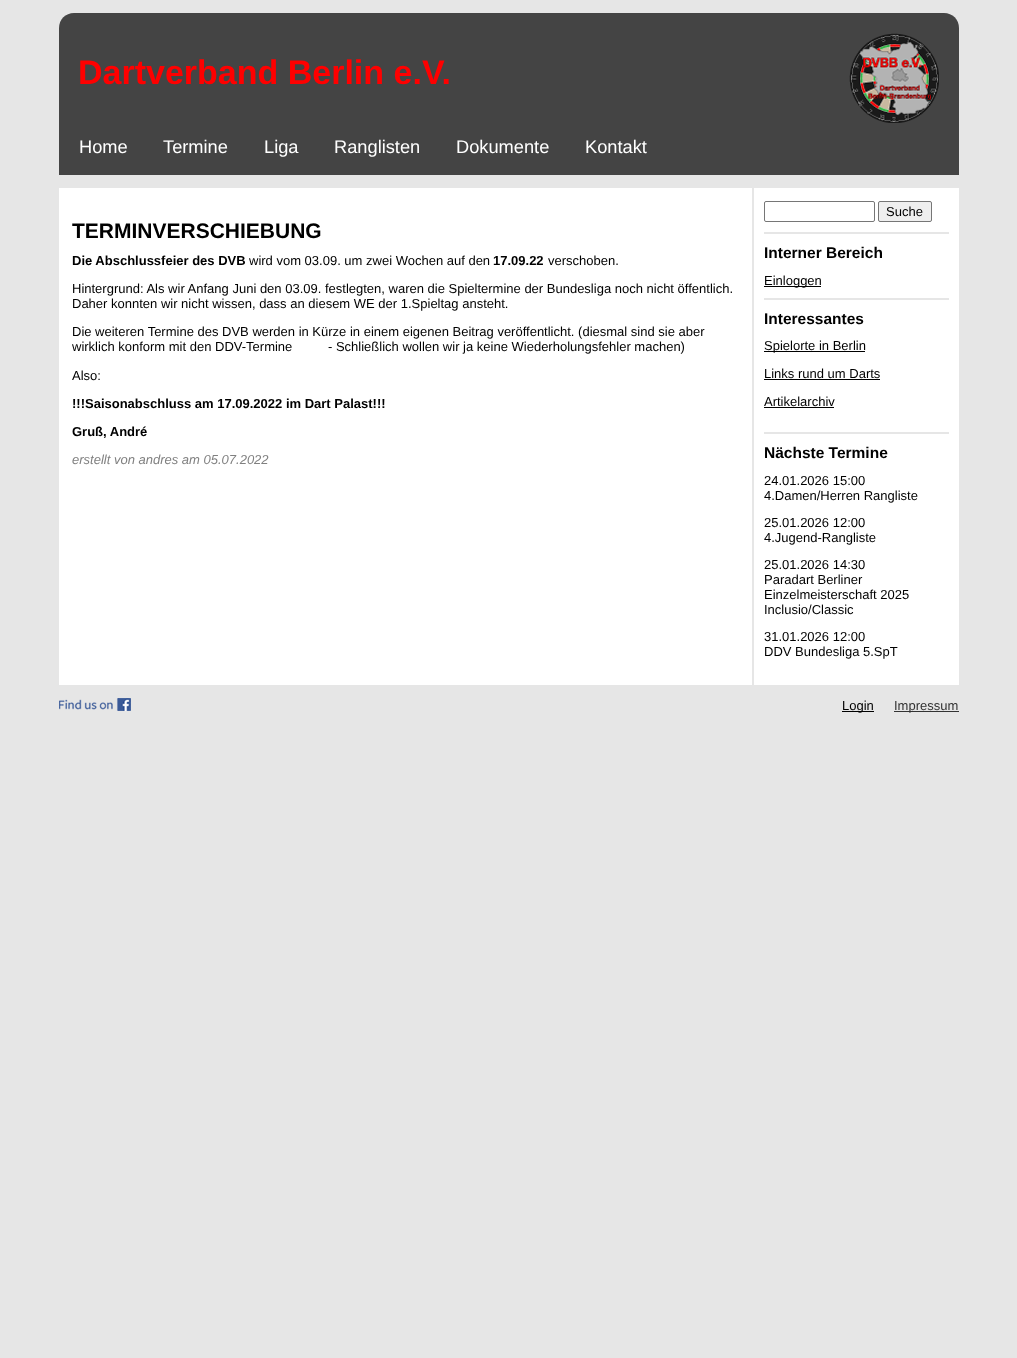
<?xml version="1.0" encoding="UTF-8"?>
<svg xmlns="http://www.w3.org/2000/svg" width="1017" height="1358">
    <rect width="100%" height="100%" fill="#E6E6E6"/>
    <path d="M 74 13 H 944 C 952.5 13 959 19.5 959 28 V 175 H 59 V 28 C 59 19.5 65.5 13 74 13 Z" fill="#444444"/>
    <text x="78" y="84" font-family="Liberation Sans" font-size="34" font-weight="700" fill="#FF0000">Dartverband Berlin e.V.</text>
    <image x="849" y="33" width="90" height="90" href="img_01.png"/>
    <text x="79" y="153" font-family="Liberation Sans" font-size="18.25" fill="#FFFFFF">Home</text>
    <text x="163" y="153" font-family="Liberation Sans" font-size="18.25" fill="#FFFFFF">Termine</text>
    <text x="264" y="153" font-family="Liberation Sans" font-size="18.25" fill="#FFFFFF">Liga</text>
    <text x="334" y="153" font-family="Liberation Sans" font-size="18.25" fill="#FFFFFF">Ranglisten</text>
    <text x="456" y="153" font-family="Liberation Sans" font-size="18.25" fill="#FFFFFF">Dokumente</text>
    <text x="585" y="153" font-family="Liberation Sans" font-size="18.25" fill="#FFFFFF">Kontakt</text>
    <rect x="59" y="188" width="900" height="497" fill="#FFFFFF"/>
    <text x="72" y="238" font-family="Liberation Sans" font-size="21" font-weight="700" fill="#000000">TERMINVERSCHIEBUNG</text>
    <text x="72" y="265" font-family="Liberation Sans" font-size="13" font-weight="700" fill="#000000">Die Abschlussfeier des DVB</text>
    <text x="249" y="265" font-family="Liberation Sans" font-size="13" fill="#000000">wird vom 03.09. um zwei Wochen auf den</text>
    <text x="493" y="265" font-family="Liberation Sans" font-size="13" font-weight="700" fill="#000000">17.09.22</text>
    <text x="548" y="265" font-family="Liberation Sans" font-size="13" fill="#000000">verschoben.</text>
    <text font-family="Liberation Sans" font-size="13" fill="#000000">
        <tspan x="72" y="293">Hintergrund: Als wir Anfang Juni den 03.09. festlegten, waren die Spieltermine der Bundesliga noch nicht öffentlich.</tspan>
        <tspan x="72" y="308">Daher konnten wir nicht wissen, dass an diesem WE der 1.Spieltag ansteht.</tspan>
    </text>
    <text font-family="Liberation Sans" font-size="13" fill="#000000">
        <tspan x="72" y="336">Die weiteren Termine des DVB werden in Kürze in einem eigenen Beitrag veröffentlicht. (diesmal sind sie aber</tspan>
        <tspan x="72" y="351">wirklich konform mit den DDV-Termine</tspan>
    </text>
    <text x="328" y="351" font-family="Liberation Sans" font-size="13" fill="#000000">- Schließlich wollen wir ja keine Wiederholungsfehler machen)</text>
    <text x="72" y="380" font-family="Liberation Sans" font-size="13" fill="#000000">Also:</text>
    <text x="72" y="408" font-family="Liberation Sans" font-size="13" font-weight="700" fill="#000000">!!!Saisonabschluss am 17.09.2022 im Dart Palast!!!</text>
    <text x="72" y="436" font-family="Liberation Sans" font-size="13" font-weight="700" fill="#000000">Gruß, André</text>
    <text x="72" y="464" font-family="Liberation Sans" font-size="13" font-style="italic" fill="#808080">erstellt von andres am 05.07.2022</text>
    <rect x="752" y="188" width="2" height="497" fill="#E6E6E6"/>
    <rect x="764" y="232" width="185" height="2" fill="#E6E6E6"/>
    <rect x="764.5" y="201.5" width="110" height="20" rx="1.5" fill="none" stroke="#767676"/>
    <rect x="878.5" y="201.5" width="53" height="20" rx="1.5" fill="#EFEFEF" stroke="#767676"/>
    <text x="886" y="216" font-family="Liberation Sans" font-size="13" fill="#000000">Suche</text>
    <rect x="764" y="298" width="185" height="2" fill="#E6E6E6"/>
    <text x="764" y="258" font-family="Liberation Sans" font-size="15.5" font-weight="700" fill="#000000">Interner Bereich</text>
    <rect x="764" y="286" width="57" height="1" fill="#000000"/>
    <text x="764" y="285" font-family="Liberation Sans" font-size="13" fill="#000000">Einloggen</text>
    <rect x="764" y="432" width="185" height="2" fill="#E6E6E6"/>
    <text x="764" y="324" font-family="Liberation Sans" font-size="15.5" font-weight="700" fill="#000000">Interessantes</text>
    <rect x="764" y="351" width="101" height="1" fill="#000000"/>
    <text x="764" y="350" font-family="Liberation Sans" font-size="13" fill="#000000">Spielorte in Berlin</text>
    <text x="764" y="378" font-family="Liberation Sans" font-size="13" fill="#000000">Links rund um Darts</text>
    <rect x="764" y="379" width="116" height="1" fill="#000000"/>
    <text x="764" y="406" font-family="Liberation Sans" font-size="13" fill="#000000">Artikelarchiv</text>
    <rect x="764" y="407" width="70" height="1" fill="#000000"/>
    <text x="764" y="458" font-family="Liberation Sans" font-size="15.5" font-weight="700" fill="#000000">Nächste Termine</text>
    <text font-family="Liberation Sans" font-size="13" fill="#000000">
        <tspan x="764" y="485">24.01.2026 15:00</tspan>
        <tspan x="764" y="500">4.Damen/Herren Rangliste</tspan>
    </text>
    <text font-family="Liberation Sans" font-size="13" fill="#000000">
        <tspan x="764" y="527">25.01.2026 12:00</tspan>
        <tspan x="764" y="542">4.Jugend-Rangliste</tspan>
    </text>
    <text font-family="Liberation Sans" font-size="13" fill="#000000">
        <tspan x="764" y="569">25.01.2026 14:30</tspan>
        <tspan x="764" y="584">Paradart Berliner</tspan>
        <tspan x="764" y="599">Einzelmeisterschaft 2025</tspan>
        <tspan x="764" y="614">Inclusio/Classic</tspan>
    </text>
    <text font-family="Liberation Sans" font-size="13" fill="#000000">
        <tspan x="764" y="641">31.01.2026 12:00</tspan>
        <tspan x="764" y="656">DDV Bundesliga 5.SpT</tspan>
    </text>
    <image x="59" y="698" width="72" height="13" href="img_02.png"/>
    <rect x="842" y="711" width="32" height="1" fill="#000000"/>
    <text x="842" y="710" font-family="Liberation Sans" font-size="13" fill="#000000">Login</text>
    <rect x="894" y="711" width="65" height="1" fill="#333333"/>
    <text x="894" y="710" font-family="Liberation Sans" font-size="13" fill="#333333">Impressum</text>
</svg>
